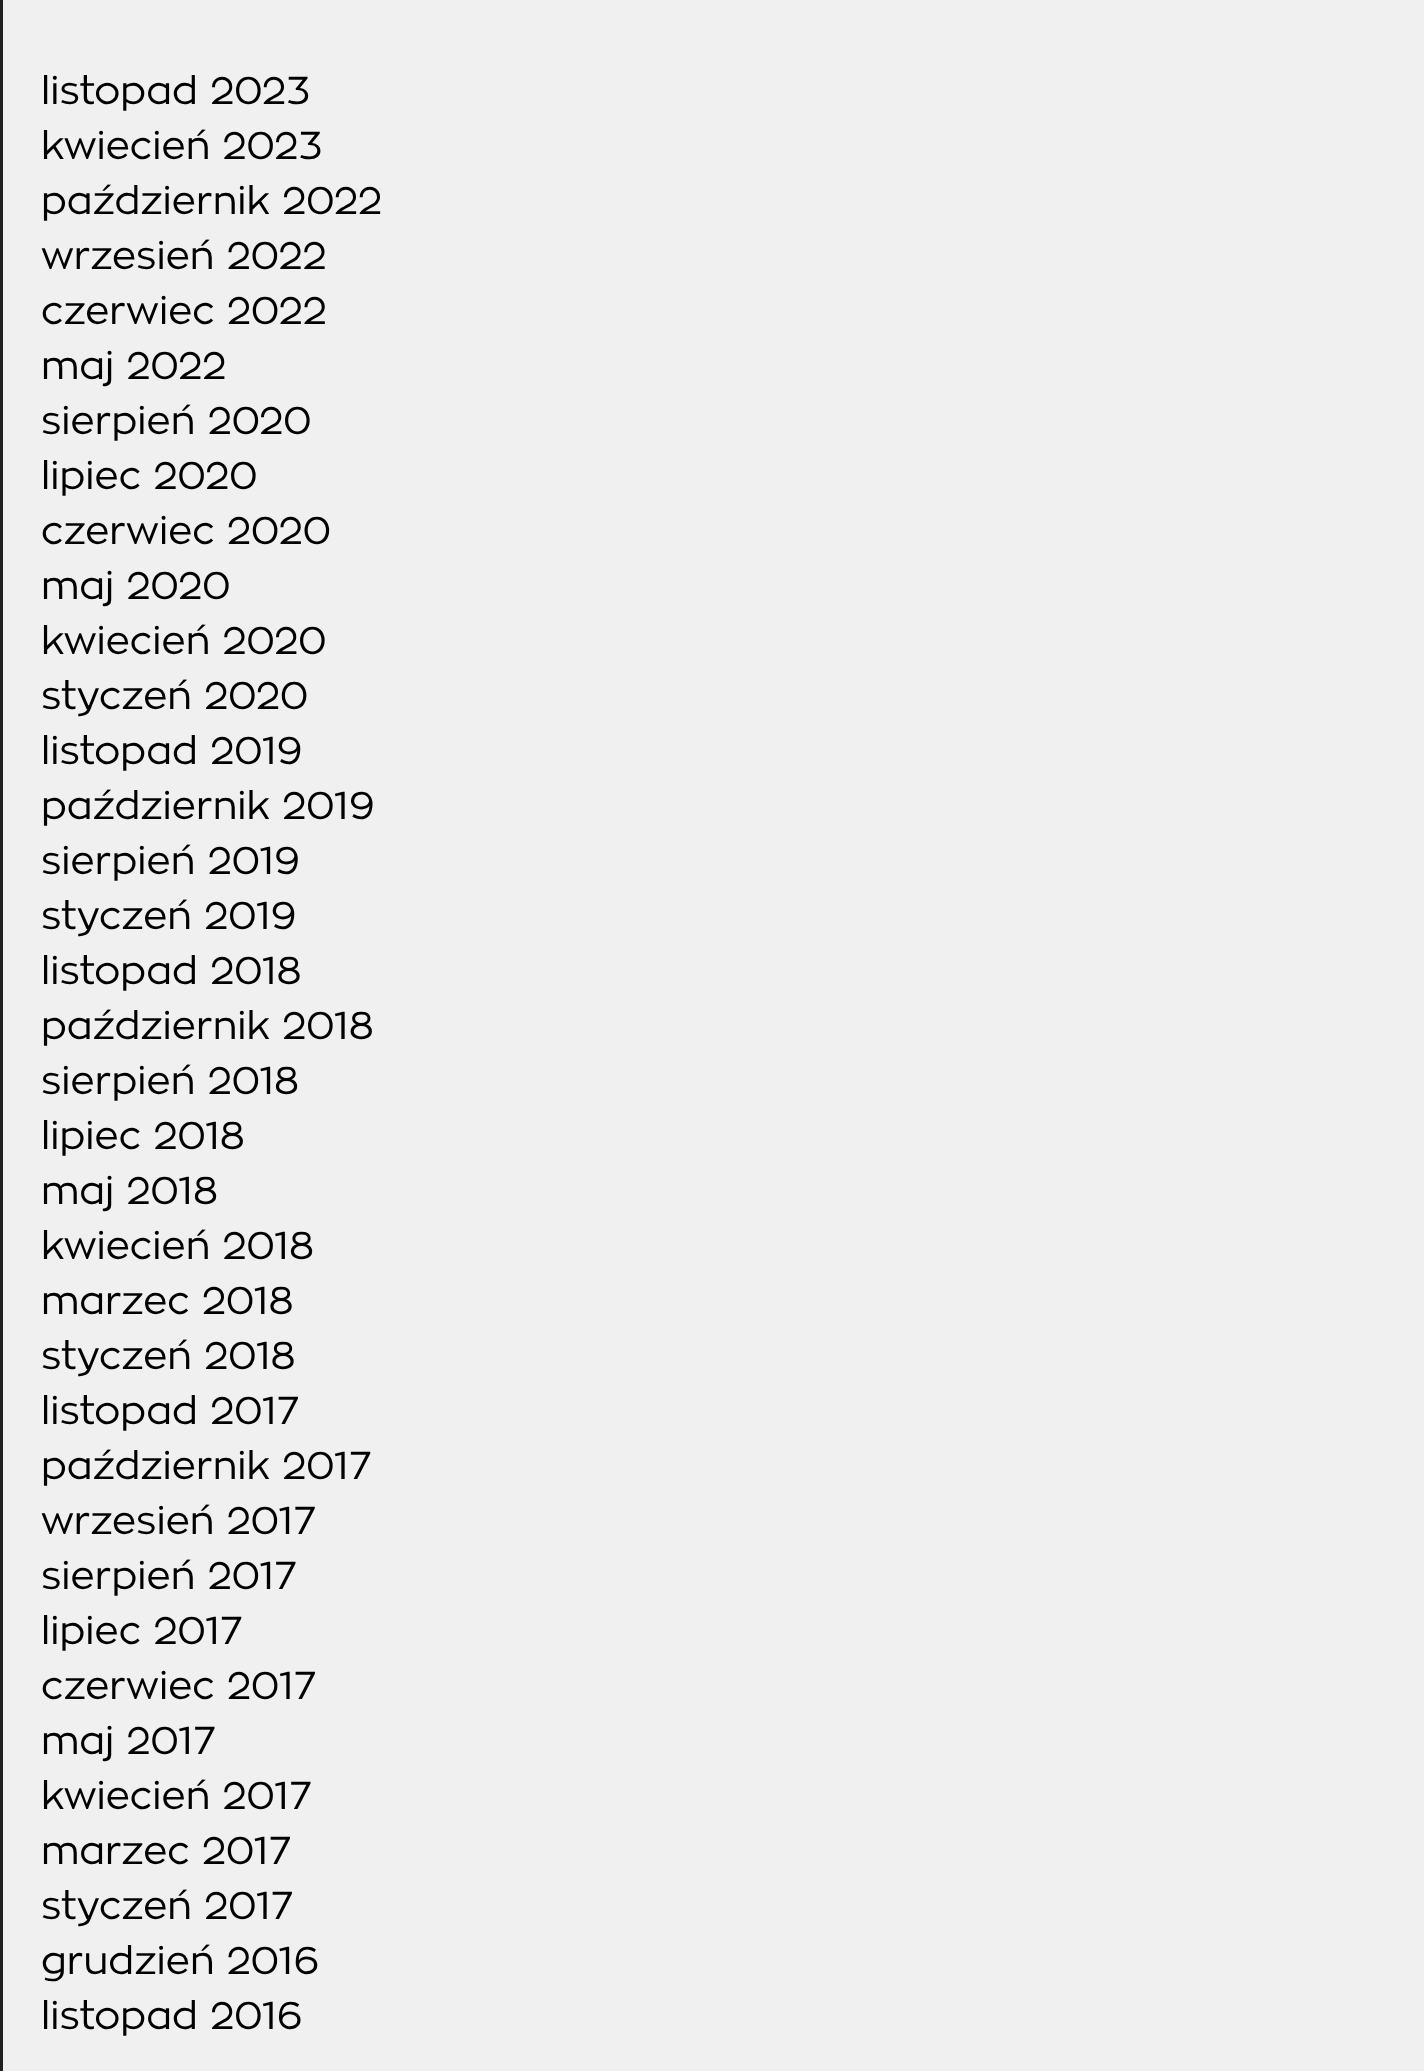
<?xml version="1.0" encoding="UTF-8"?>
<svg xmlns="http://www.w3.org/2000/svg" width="1424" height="2071">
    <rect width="100%" height="100%" fill="#F0F0F0"/>
    <rect x="0" y="0" width="3" height="2071" fill="#212121"/>
    <text font-family="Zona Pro" font-size="38.5" fill="#000000">
        <tspan x="41" y="104">listopad 2023</tspan>
        <tspan x="41" y="159">kwiecień 2023</tspan>
        <tspan x="41" y="214">październik 2022</tspan>
        <tspan x="41" y="269">wrzesień 2022</tspan>
        <tspan x="41" y="324">czerwiec 2022</tspan>
        <tspan x="41" y="379">maj 2022</tspan>
        <tspan x="41" y="434">sierpień 2020</tspan>
        <tspan x="41" y="489">lipiec 2020</tspan>
        <tspan x="41" y="544">czerwiec 2020</tspan>
        <tspan x="41" y="599">maj 2020</tspan>
        <tspan x="41" y="654">kwiecień 2020</tspan>
        <tspan x="41" y="709">styczeń 2020</tspan>
        <tspan x="41" y="764">listopad 2019</tspan>
        <tspan x="41" y="819">październik 2019</tspan>
        <tspan x="41" y="874">sierpień 2019</tspan>
        <tspan x="41" y="929">styczeń 2019</tspan>
        <tspan x="41" y="984">listopad 2018</tspan>
        <tspan x="41" y="1039">październik 2018</tspan>
        <tspan x="41" y="1094">sierpień 2018</tspan>
        <tspan x="41" y="1149">lipiec 2018</tspan>
        <tspan x="41" y="1204">maj 2018</tspan>
        <tspan x="41" y="1259">kwiecień 2018</tspan>
        <tspan x="41" y="1314">marzec 2018</tspan>
        <tspan x="41" y="1369">styczeń 2018</tspan>
        <tspan x="41" y="1424">listopad 2017</tspan>
        <tspan x="41" y="1479">październik 2017</tspan>
        <tspan x="41" y="1534">wrzesień 2017</tspan>
        <tspan x="41" y="1589">sierpień 2017</tspan>
        <tspan x="41" y="1644">lipiec 2017</tspan>
        <tspan x="41" y="1699">czerwiec 2017</tspan>
        <tspan x="41" y="1754">maj 2017</tspan>
        <tspan x="41" y="1809">kwiecień 2017</tspan>
        <tspan x="41" y="1864">marzec 2017</tspan>
        <tspan x="41" y="1919">styczeń 2017</tspan>
        <tspan x="41" y="1974">grudzień 2016</tspan>
        <tspan x="41" y="2029">listopad 2016</tspan>
    </text>
</svg>
